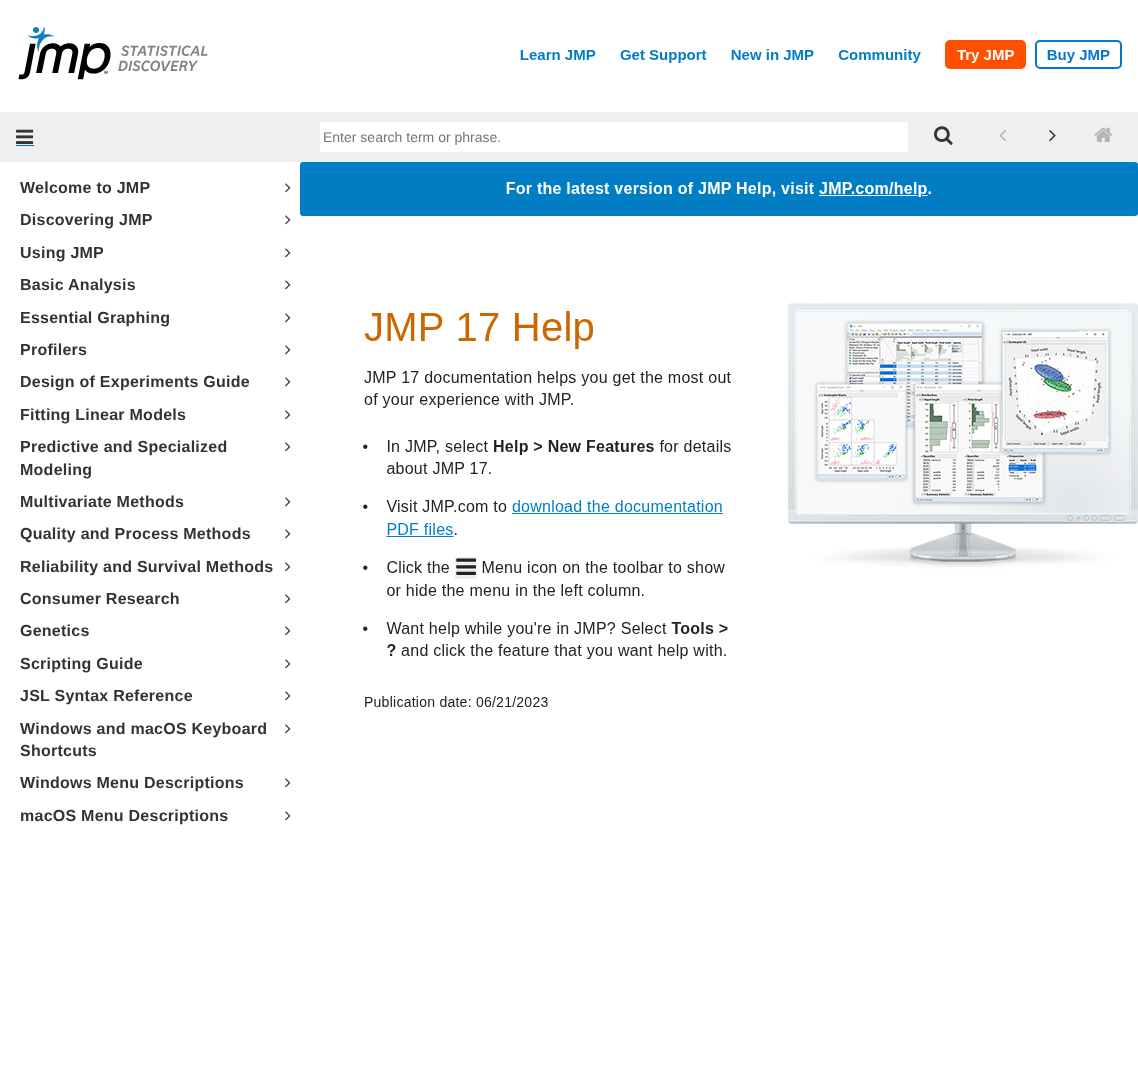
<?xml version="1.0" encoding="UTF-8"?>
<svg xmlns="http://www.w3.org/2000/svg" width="1138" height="1083">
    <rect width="100%" height="100%" fill="#FFFFFF"/>
    <image x="0" y="0" width="1138" height="112" href="img_01.png"/>
    <rect x="0" y="112" width="1138" height="50" fill="#EFEFEF"/>
    <image x="16" y="129" width="18" height="15" href="img_02.png"/>
    <rect x="16" y="145" width="18" height="1" fill="#0072CF"/>
    <rect x="320" y="122" width="588" height="30" fill="#FFFFFF"/>
    <text x="323" y="142" font-family="Liberation Sans" font-size="14" fill="#757575">Enter search term or phrase.</text>
    <image x="934" y="126" width="19" height="19" href="img_03.png"/>
    <image x="999" y="130" width="7" height="11" href="img_04.png"/>
    <image x="1049" y="130" width="7" height="12" href="img_05.png"/>
    <image x="1094" y="127" width="19" height="15" href="img_06.png"/>
    <text x="20" y="193" font-family="Liberation Sans" font-size="16" font-weight="700" letter-spacing="0.25" fill="#333333">Welcome to JMP</text>
    <image x="285" y="183" width="6" height="10" href="img_07.png"/>
    <text x="20" y="225" font-family="Liberation Sans" font-size="16" font-weight="700" letter-spacing="0.25" fill="#333333">Discovering JMP</text>
    <image x="285" y="215" width="6" height="10" href="img_07.png"/>
    <text x="20" y="258" font-family="Liberation Sans" font-size="16" font-weight="700" letter-spacing="0.25" fill="#333333">Using JMP</text>
    <image x="285" y="248" width="6" height="10" href="img_07.png"/>
    <text x="20" y="290" font-family="Liberation Sans" font-size="16" font-weight="700" letter-spacing="0.25" fill="#333333">Basic Analysis</text>
    <image x="285" y="280" width="6" height="10" href="img_07.png"/>
    <text x="20" y="323" font-family="Liberation Sans" font-size="16" font-weight="700" letter-spacing="0.25" fill="#333333">Essential Graphing</text>
    <image x="285" y="313" width="6" height="10" href="img_07.png"/>
    <text x="20" y="355" font-family="Liberation Sans" font-size="16" font-weight="700" letter-spacing="0.25" fill="#333333">Profilers</text>
    <image x="285" y="345" width="6" height="10" href="img_07.png"/>
    <text x="20" y="387" font-family="Liberation Sans" font-size="16" font-weight="700" letter-spacing="0.25" fill="#333333">Design of Experiments Guide</text>
    <image x="285" y="377" width="6" height="10" href="img_07.png"/>
    <text x="20" y="420" font-family="Liberation Sans" font-size="16" font-weight="700" letter-spacing="0.25" fill="#333333">Fitting Linear Models</text>
    <image x="285" y="410" width="6" height="10" href="img_07.png"/>
    <text font-family="Liberation Sans" font-size="16" font-weight="700" letter-spacing="0.25" fill="#333333">
        <tspan x="20" y="452">Predictive and Specialized</tspan>
        <tspan x="20" y="475">Modeling</tspan>
    </text>
    <image x="285" y="442" width="6" height="10" href="img_07.png"/>
    <text x="20" y="507" font-family="Liberation Sans" font-size="16" font-weight="700" letter-spacing="0.25" fill="#333333">Multivariate Methods</text>
    <image x="285" y="497" width="6" height="10" href="img_07.png"/>
    <text x="20" y="539" font-family="Liberation Sans" font-size="16" font-weight="700" letter-spacing="0.25" fill="#333333">Quality and Process Methods</text>
    <image x="285" y="529" width="6" height="10" href="img_07.png"/>
    <text x="20" y="572" font-family="Liberation Sans" font-size="16" font-weight="700" letter-spacing="0.25" fill="#333333">Reliability and Survival Methods</text>
    <image x="285" y="562" width="6" height="10" href="img_07.png"/>
    <text x="20" y="604" font-family="Liberation Sans" font-size="16" font-weight="700" letter-spacing="0.25" fill="#333333">Consumer Research</text>
    <image x="285" y="594" width="6" height="10" href="img_07.png"/>
    <text x="20" y="636" font-family="Liberation Sans" font-size="16" font-weight="700" letter-spacing="0.25" fill="#333333">Genetics</text>
    <image x="285" y="626" width="6" height="10" href="img_07.png"/>
    <text x="20" y="669" font-family="Liberation Sans" font-size="16" font-weight="700" letter-spacing="0.25" fill="#333333">Scripting Guide</text>
    <image x="285" y="659" width="6" height="10" href="img_07.png"/>
    <text x="20" y="701" font-family="Liberation Sans" font-size="16" font-weight="700" letter-spacing="0.25" fill="#333333">JSL Syntax Reference</text>
    <image x="285" y="691" width="6" height="10" href="img_07.png"/>
    <text font-family="Liberation Sans" font-size="16" font-weight="700" letter-spacing="0.25" fill="#333333">
        <tspan x="20" y="734">Windows and macOS Keyboard</tspan>
        <tspan x="20" y="756">Shortcuts</tspan>
    </text>
    <image x="285" y="724" width="6" height="10" href="img_07.png"/>
    <text x="20" y="788" font-family="Liberation Sans" font-size="16" font-weight="700" letter-spacing="0.25" fill="#333333">Windows Menu Descriptions</text>
    <image x="285" y="778" width="6" height="10" href="img_07.png"/>
    <text x="20" y="821" font-family="Liberation Sans" font-size="16" font-weight="700" letter-spacing="0.25" fill="#333333">macOS Menu Descriptions</text>
    <image x="285" y="811" width="6" height="10" href="img_07.png"/>
    <image x="300" y="162" width="838" height="545" href="img_08.png"/>
</svg>
